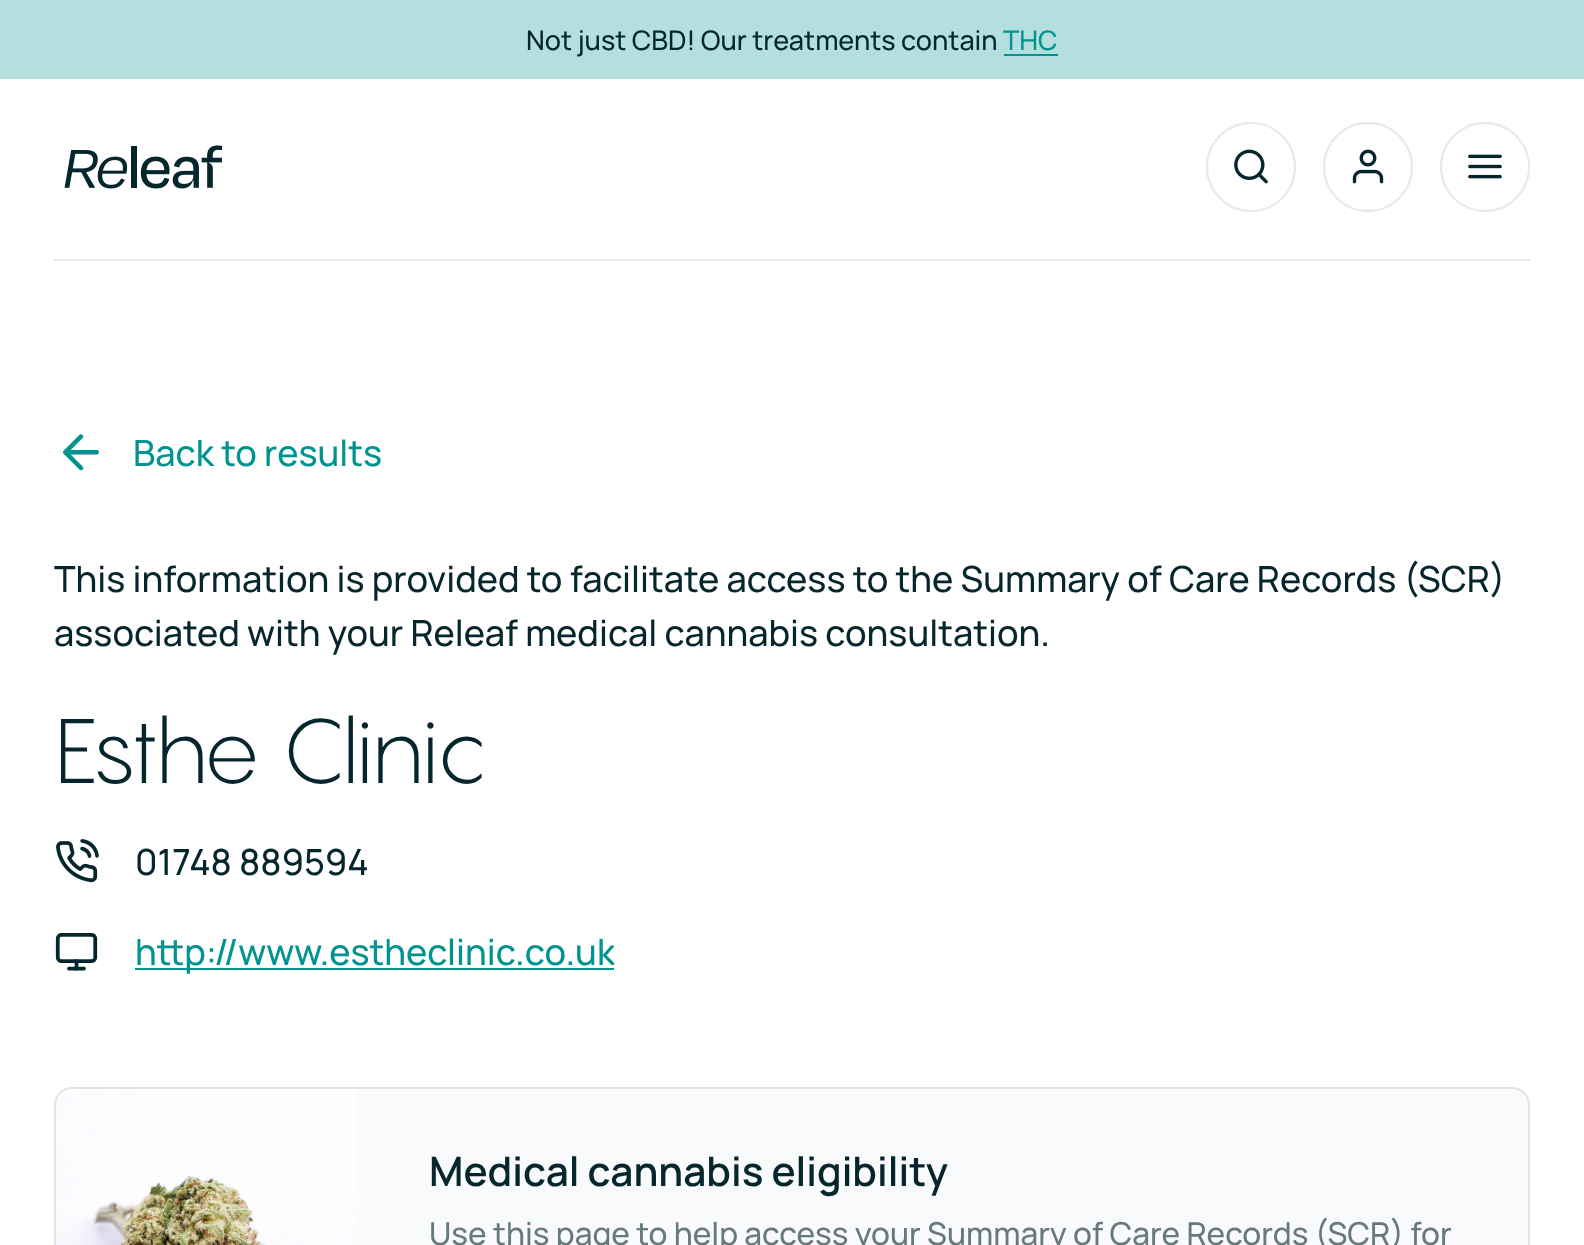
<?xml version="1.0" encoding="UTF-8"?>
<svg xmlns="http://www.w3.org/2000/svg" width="1584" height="1245">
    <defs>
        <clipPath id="clip1"><rect x="135" y="925" width="479" height="54"/></clipPath>
    </defs>
    <rect width="100%" height="100%" fill="#FFFFFF"/>
    <rect x="0" y="0" width="1584" height="79" fill="#B3DFDE"/>
    <text x="526" y="50" font-family="Manrope" font-size="27" font-weight="500" fill="#06262D">Not just CBD! Our treatments contain</text>
    <text x="1003" y="50" font-family="Manrope" font-size="27" font-weight="500" fill="#009490">THC</text>
    <rect x="1004" y="54" width="54" height="2" fill="#009490"/>
    <rect x="54" y="259" width="1476" height="2" fill="#E6E9EA"/>
    <image x="64" y="145" width="159" height="44" href="img_01.png"/>
    <circle cx="1251" cy="167" r="44" fill="none" stroke="#E6E9EA" stroke-width="2"/>
    <image x="1234" y="149" width="34" height="35" href="img_02.png"/>
    <circle cx="1368" cy="167" r="44" fill="none" stroke="#E6E9EA" stroke-width="2"/>
    <image x="1352" y="149" width="32" height="35" href="img_03.png"/>
    <circle cx="1485" cy="167" r="44" fill="none" stroke="#E6E9EA" stroke-width="2"/>
    <image x="1468" y="154" width="34" height="25" href="img_04.png"/>
    <image x="63" y="434" width="36" height="37" href="img_05.png"/>
    <text x="133" y="466" font-family="Manrope" font-size="36" font-weight="500" fill="#009490">Back to results</text>
    <text font-family="Manrope" font-size="36" font-weight="500" fill="#06262D">
        <tspan x="54" y="592">This information is provided to facilitate access to the Summary of Care Records (SCR)</tspan>
        <tspan x="54" y="646">associated with your Releaf medical cannabis consultation.</tspan>
    </text>
    <text x="54" y="783" font-family="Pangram" font-size="90" font-weight="300" letter-spacing="-2.25" fill="#06262D">Esthe Clinic</text>
    <image x="56" y="839" width="43" height="44" href="img_06.png"/>
    <text x="135" y="875" font-family="Manrope" font-size="36" font-weight="500" fill="#06262D">01748 889594</text>
    <image x="55" y="933" width="43" height="38" href="img_07.png"/>
    <rect x="135" y="968" width="479" height="2" fill="#009490"/>
    <g clip-path="url(#clip1)">
        <text x="135" y="965" font-family="Manrope" font-size="36" font-weight="500" fill="#009490">http://www.estheclinic.co.uk</text>
    </g>
    <rect x="55" y="1088" width="1474" height="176" rx="17" fill="#F9FAFB" stroke="#E1E5E6" stroke-width="2"/>
    <image x="57" y="1089" width="301" height="156" href="img_08.png"/>
    <text x="429" y="1186" font-family="Manrope" font-size="40.5" font-weight="600" fill="#06262D">Medical cannabis eligibility</text>
    <text x="429" y="1245" font-family="Manrope" font-size="31.5" font-weight="500" fill="#66797D">Use this page to help access your Summary of Care Records (SCR) for</text>
</svg>
